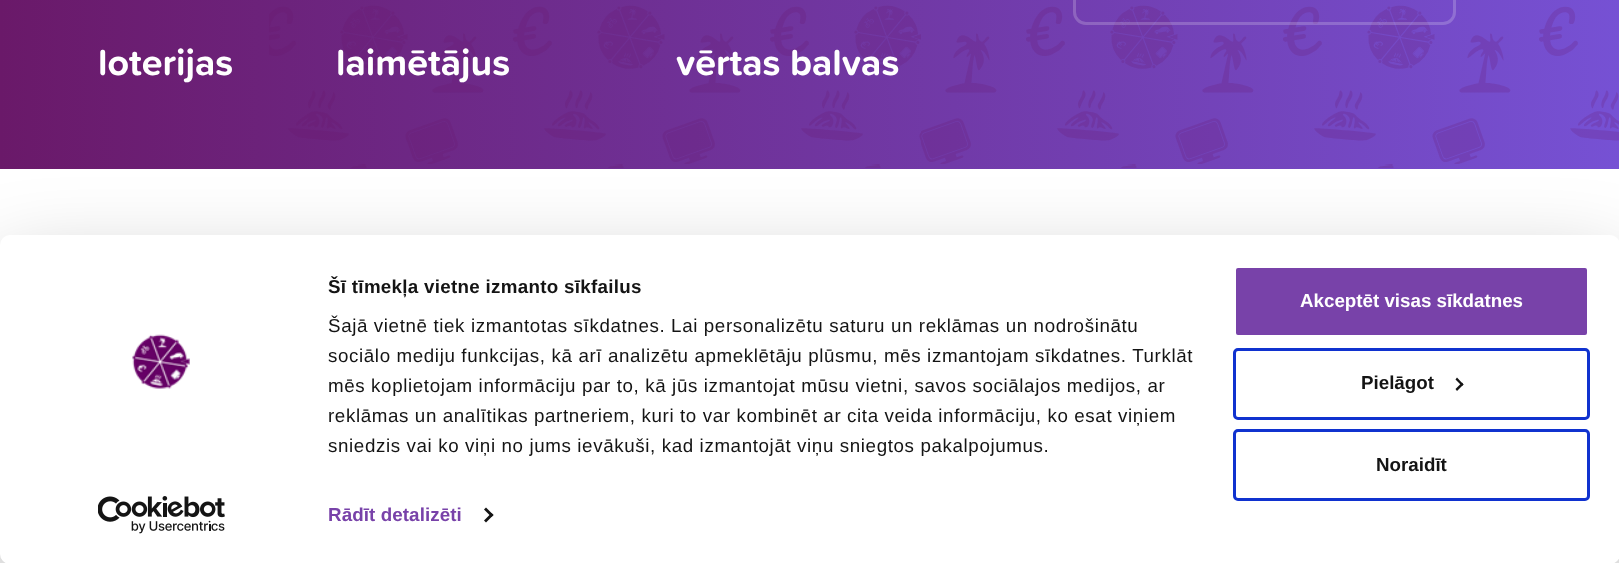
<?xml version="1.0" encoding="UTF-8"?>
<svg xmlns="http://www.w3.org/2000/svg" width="1619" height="563">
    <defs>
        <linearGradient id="g1" gradientUnits="userSpaceOnUse" x1="0" y1="-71" x2="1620" y2="-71"><stop offset="0" stop-color="#6A1969"/><stop offset="1" stop-color="#7651D4"/></linearGradient>
        <filter id="blur1" x="-50%" y="-200%" width="200%" height="500%"><feGaussianBlur stdDeviation="44"/></filter>
    </defs>
    <rect width="100%" height="100%" fill="#FFFFFF"/>
    <rect x="0" y="0" width="1619" height="169" fill="url(#g1)"/>
    <image x="269" y="5" width="1350" height="163" href="img_01.png"/>
    <rect x="1074.5" y="-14.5" width="380" height="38" rx="11.5" fill="none" stroke="#FFFFFF" stroke-opacity="0.2" stroke-width="3"/>
    <text x="98" y="75" font-family="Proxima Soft" font-size="37.5" font-weight="700" fill="#FFFFFF">loterijas</text>
    <text x="336" y="75" font-family="Proxima Soft" font-size="37.5" font-weight="700" fill="#FFFFFF">laimētājus</text>
    <text x="676" y="75" font-family="Proxima Soft" font-size="37.5" font-weight="700" fill="#FFFFFF">vērtas balvas</text>
    <rect x="0" y="273" width="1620" height="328" rx="10" fill="#000000" fill-opacity="0.3" filter="url(#blur1)"/>
    <rect x="0" y="235" width="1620" height="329" rx="10" fill="#FFFFFF"/>
    <image x="132" y="334" width="58" height="55" href="img_02.png"/>
    <image x="98" y="496" width="127" height="38" href="img_03.png"/>
    <text x="328" y="293" font-family="Liberation Sans" font-size="18.75" font-weight="700" letter-spacing="0.3" fill="#141414">Šī tīmekļa vietne izmanto sīkfailus</text>
    <text font-family="Liberation Sans" font-size="18.75" letter-spacing="0.62" fill="#141414">
        <tspan x="328" y="332">Šajā vietnē tiek izmantotas sīkdatnes. Lai personalizētu saturu un reklāmas un nodrošinātu</tspan>
        <tspan x="328" y="362">sociālo mediju funkcijas, kā arī analizētu apmeklētāju plūsmu, mēs izmantojam sīkdatnes. Turklāt</tspan>
        <tspan x="328" y="392">mēs koplietojam informāciju par to, kā jūs izmantojat mūsu vietni, savos sociālajos medijos, ar</tspan>
        <tspan x="328" y="422">reklāmas un analītikas partneriem, kuri to var kombinēt ar cita veida informāciju, ko esat viņiem</tspan>
        <tspan x="328" y="452">sniedzis vai ko viņi no jums ievākuši, kad izmantojāt viņu sniegtos pakalpojumus.</tspan>
    </text>
    <text x="328" y="521" font-family="Liberation Sans" font-size="18.75" font-weight="700" letter-spacing="0.1" fill="#7842A9">Rādīt detalizēti</text>
    <path d="M 486 507.5 L 493.5 515 L 491.5 517 L 484 509.5 Z" fill="#141414"/>
    <path d="M 491.5 513 L 493.5 515 L 486 522.5 L 484 520.5 Z" fill="#141414"/>
    <rect x="1234.5" y="266.5" width="354" height="70" rx="3.5" fill="#7842A9" stroke="#FFFFFF" stroke-width="3"/>
    <text x="1300" y="307" font-family="Liberation Sans" font-size="18.75" font-weight="700" fill="#FFFFFF">Akceptēt visas sīkdatnes</text>
    <rect x="1234.5" y="349.5" width="354" height="69" rx="3.5" fill="none" stroke="#1032CF" stroke-width="3"/>
    <text x="1361" y="389" font-family="Liberation Sans" font-size="18.75" font-weight="700" fill="#141414">Pielāgot</text>
    <path d="M 1457 377.5 L 1463.5 384.5 L 1462 386 L 1455.5 379.5 Z" fill="#141414"/>
    <path d="M 1462 382.5 L 1463.5 384.5 L 1457 391 L 1455.5 389 Z" fill="#141414"/>
    <rect x="1234.5" y="430.5" width="354" height="69" rx="3.5" fill="none" stroke="#1032CF" stroke-width="3"/>
    <text x="1376" y="471" font-family="Liberation Sans" font-size="18.75" font-weight="700" fill="#141414">Noraidīt</text>
</svg>
